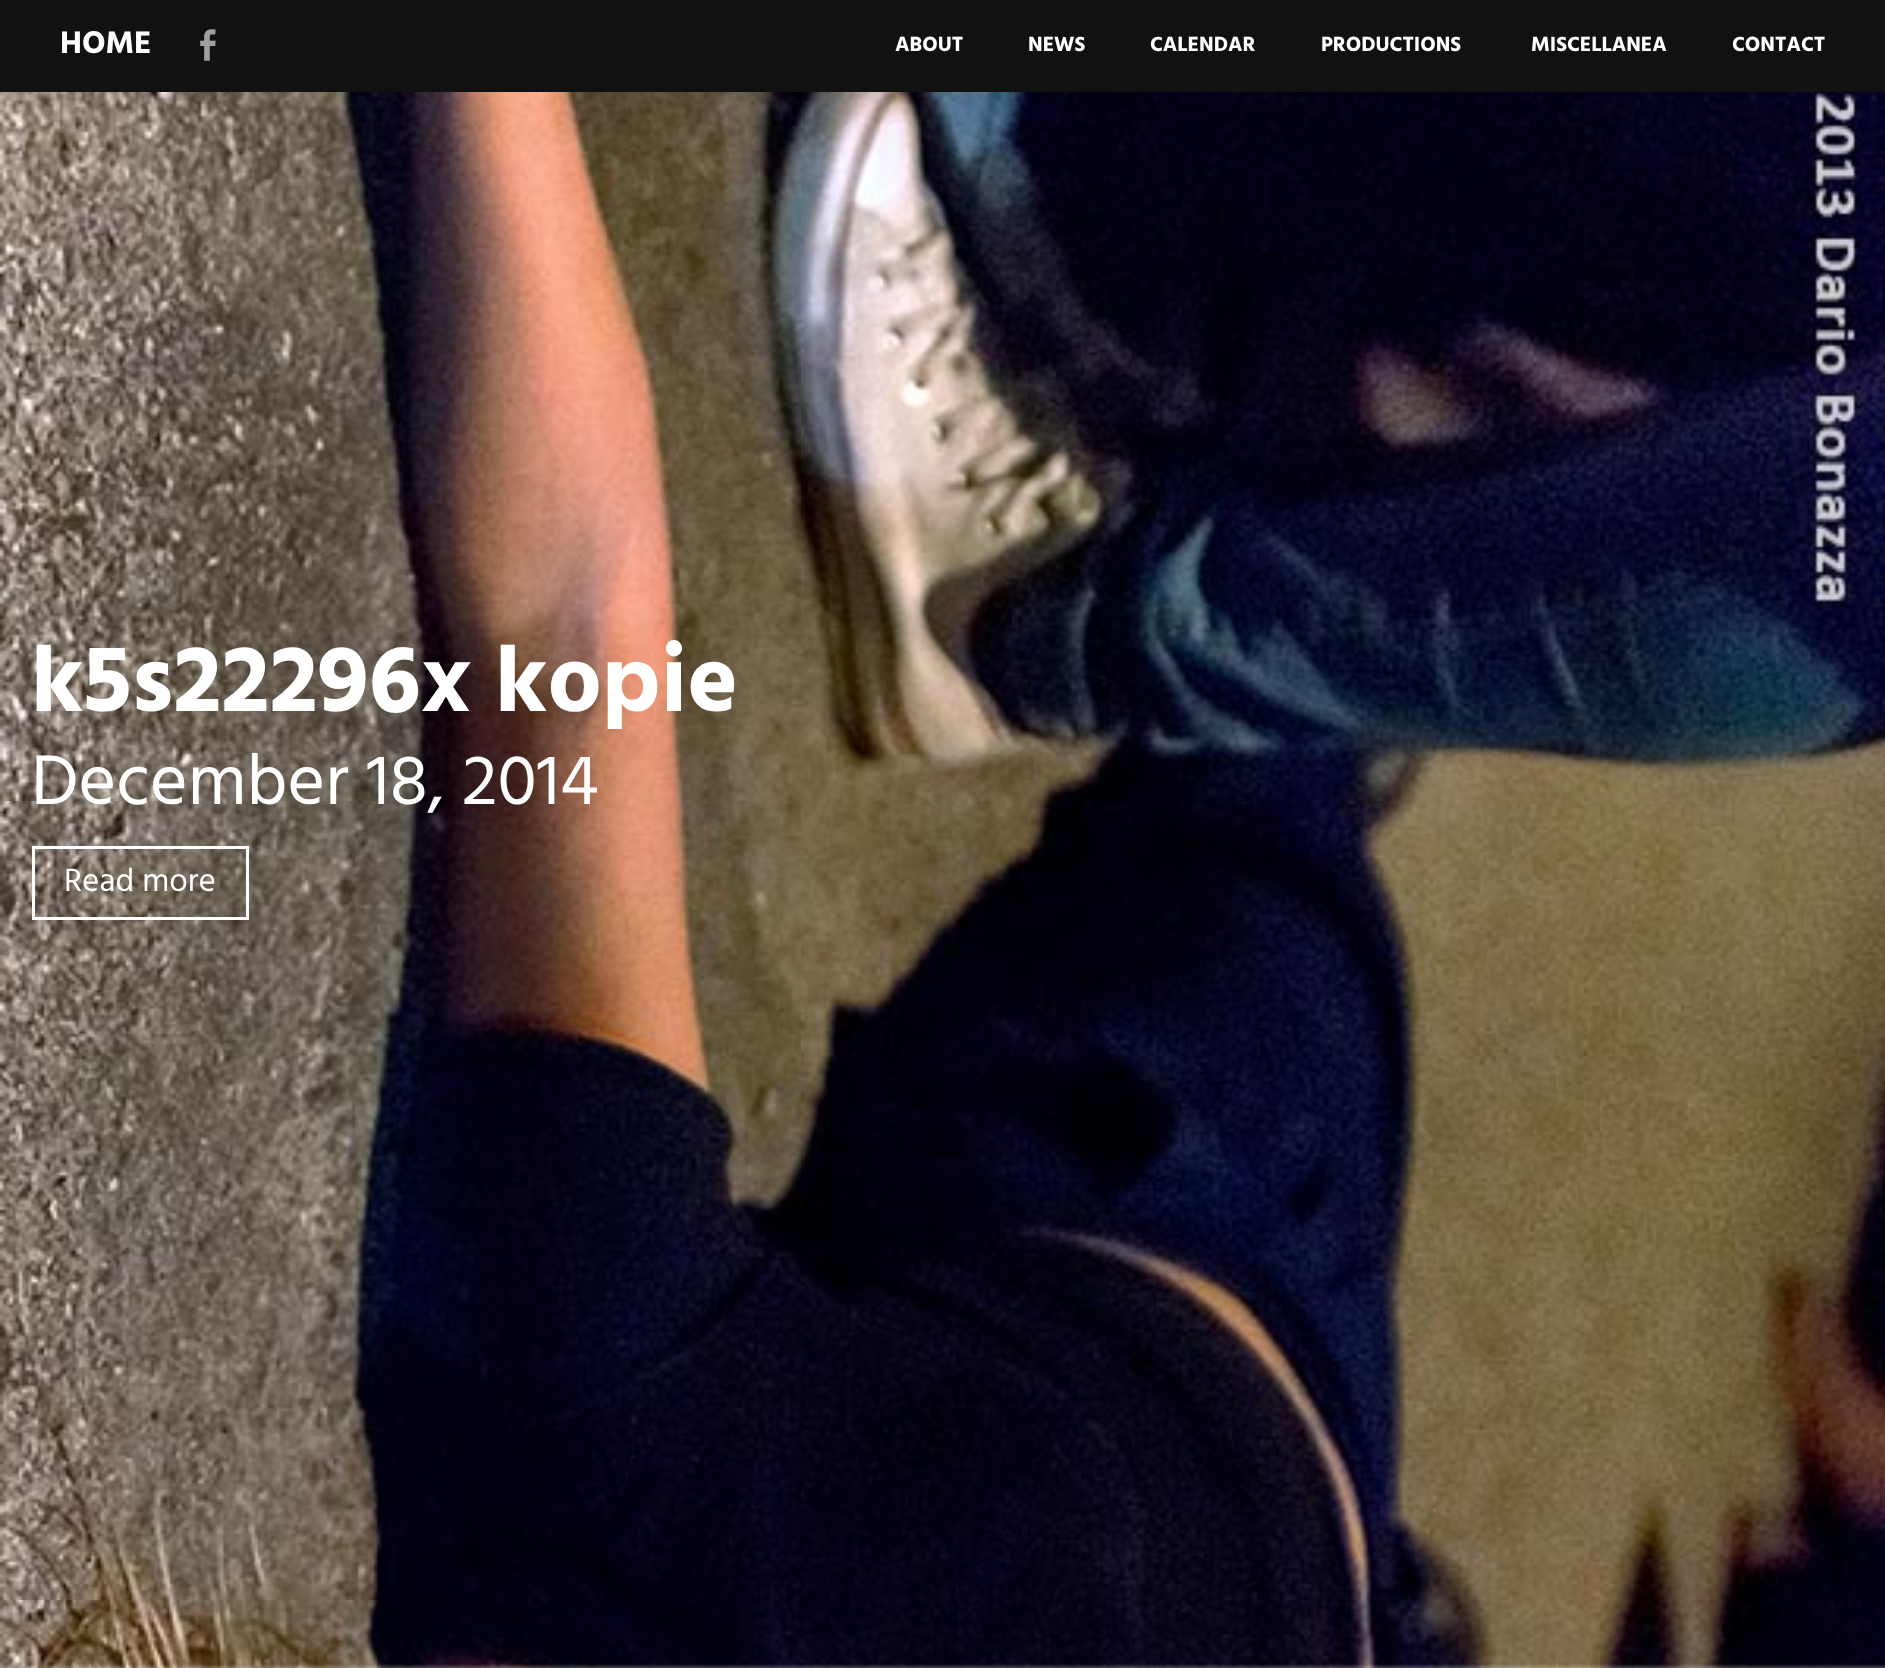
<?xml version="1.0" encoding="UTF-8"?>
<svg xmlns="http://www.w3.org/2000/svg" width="1885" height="1668">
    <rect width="100%" height="100%" fill="#FFFFFF"/>
    <rect x="0" y="0" width="1885" height="92" fill="#111111"/>
    <text x="60" y="53" font-family="Hind" font-size="32" font-weight="700" fill="#FFFFFF">HOME</text>
    <image x="200" y="29" width="16" height="32" href="img_01.png"/>
    <text x="895" y="51" font-family="Hind" font-size="21" font-weight="700" fill="#FFFFFF">ABOUT</text>
    <text x="1028" y="51" font-family="Hind" font-size="21" font-weight="700" fill="#FFFFFF">NEWS</text>
    <text x="1150" y="51" font-family="Hind" font-size="21" font-weight="700" fill="#FFFFFF">CALENDAR</text>
    <text x="1321" y="51" font-family="Hind" font-size="21" font-weight="700" fill="#FFFFFF">PRODUCTIONS</text>
    <text x="1531" y="51" font-family="Hind" font-size="21" font-weight="700" fill="#FFFFFF">MISCELLANEA</text>
    <text x="1732" y="51" font-family="Hind" font-size="21" font-weight="700" fill="#FFFFFF">CONTACT</text>
    <image x="0" y="92" width="1885" height="1576" href="img_02.png"/>
    <text x="31" y="711" font-family="Hind" font-size="96" font-weight="700" fill="#FFFFFF">k5s22296x kopie</text>
    <text x="31" y="804" font-family="Hind" font-size="72" fill="#FFFFFF">December 18, 2014</text>
    <rect x="33.5" y="847.5" width="214" height="71" fill="none" stroke="#FFFFFF" stroke-width="3"/>
    <text x="64" y="891" font-family="Hind" font-size="33" fill="#FFFFFF">Read more</text>
</svg>
